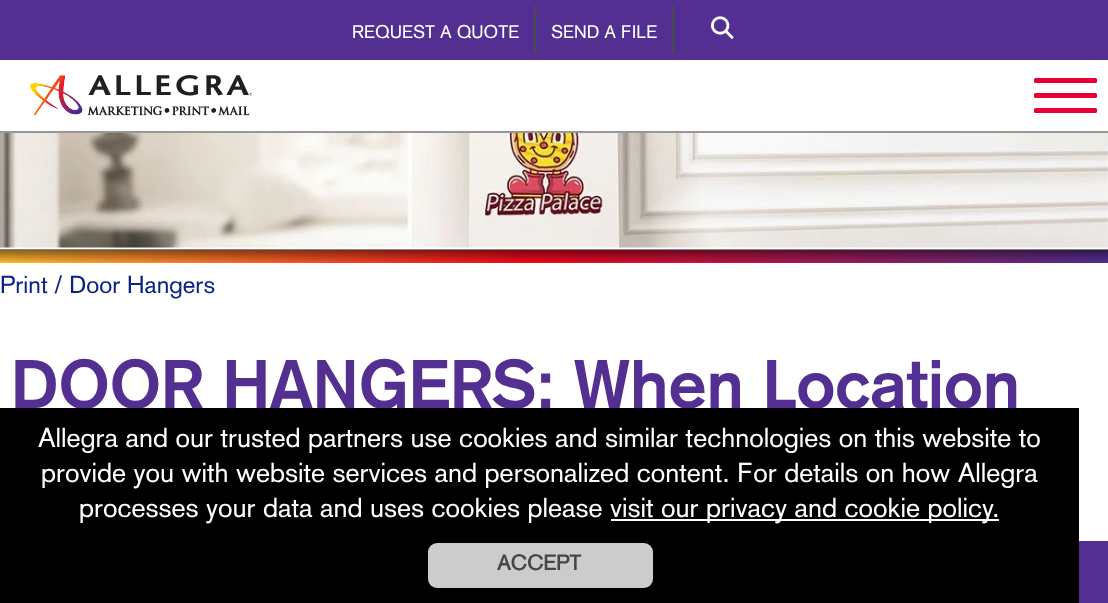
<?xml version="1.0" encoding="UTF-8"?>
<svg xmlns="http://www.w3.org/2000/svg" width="1108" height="603">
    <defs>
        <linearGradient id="g1" gradientUnits="userSpaceOnUse" x1="0" y1="256" x2="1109" y2="256"><stop offset="0" stop-color="#FDBA31"/><stop offset="0.48" stop-color="#EF061A"/><stop offset="1" stop-color="#522F91"/></linearGradient>
        <linearGradient id="g2" gradientUnits="userSpaceOnUse" x1="554" y1="263" x2="554" y2="249"><stop offset="0" stop-color="#000000" stop-opacity="0"/><stop offset="1" stop-color="#000000" stop-opacity="0.5"/></linearGradient>
    </defs>
    <rect width="100%" height="100%" fill="#FFFFFF"/>
    <rect x="0" y="131" width="1108" height="2" fill="#979797"/>
    <rect x="0" y="0" width="1108" height="60" fill="#522F91"/>
    <rect x="534" y="6" width="2" height="48" fill="#4C4C4C"/>
    <text x="352" y="38" font-family="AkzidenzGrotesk" font-size="18" fill="#FFFFFF">REQUEST A QUOTE</text>
    <rect x="672" y="6" width="2" height="48" fill="#4C4C4C"/>
    <text x="551" y="38" font-family="AkzidenzGrotesk" font-size="18" fill="#FFFFFF">SEND A FILE</text>
    <image x="711" y="16" width="23" height="23" href="img_01.png"/>
    <image x="30" y="75" width="222" height="41" href="img_02.png"/>
    <rect x="1034" y="78" width="63" height="5" rx="1.5" fill="#E70033"/>
    <rect x="1034" y="93" width="63" height="5" rx="1.5" fill="#E70033"/>
    <rect x="1034" y="108" width="63" height="5" rx="1.5" fill="#E70033"/>
    <image x="0" y="133" width="1108" height="115" href="img_03.png"/>
    <rect x="0" y="250" width="1108" height="13" fill="url(#g1)"/>
    <rect x="0" y="249" width="1108" height="13" fill="url(#g2)"/>
    <text x="0" y="293" font-family="AkzidenzGrotesk" font-size="24.25" fill="#0A2387">Print / Door Hangers</text>
    <text x="11" y="408" font-family="AkzidenzGrotesk" font-size="67.5" font-weight="700" fill="#522F91">DOOR HANGERS: When Location</text>
    <rect x="0" y="408" width="1079" height="195" fill="#000000"/>
    <text x="38" y="447" font-family="AkzidenzGrotesk" font-size="27" fill="#FFFFFF">Allegra and our trusted partners use cookies and similar technologies on this website to</text>
    <text x="41" y="482" font-family="AkzidenzGrotesk" font-size="27" fill="#FFFFFF">provide you with website services and personalized content. For details on how Allegra</text>
    <text x="79" y="517" font-family="AkzidenzGrotesk" font-size="27" fill="#FFFFFF">processes your data and uses cookies please</text>
    <rect x="611" y="519" width="388" height="2" fill="#FFFFFF"/>
    <text x="610" y="517" font-family="AkzidenzGrotesk" font-size="27" fill="#FFFFFF">visit our privacy and cookie policy.</text>
    <rect x="428" y="543" width="225" height="45" rx="9" fill="#CCCCCC"/>
    <text x="497" y="570" font-family="'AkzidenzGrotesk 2'" font-size="21" font-weight="700" fill="#464646">ACCEPT</text>
    <rect x="1079" y="541" width="29" height="62" fill="#522F91"/>
</svg>
